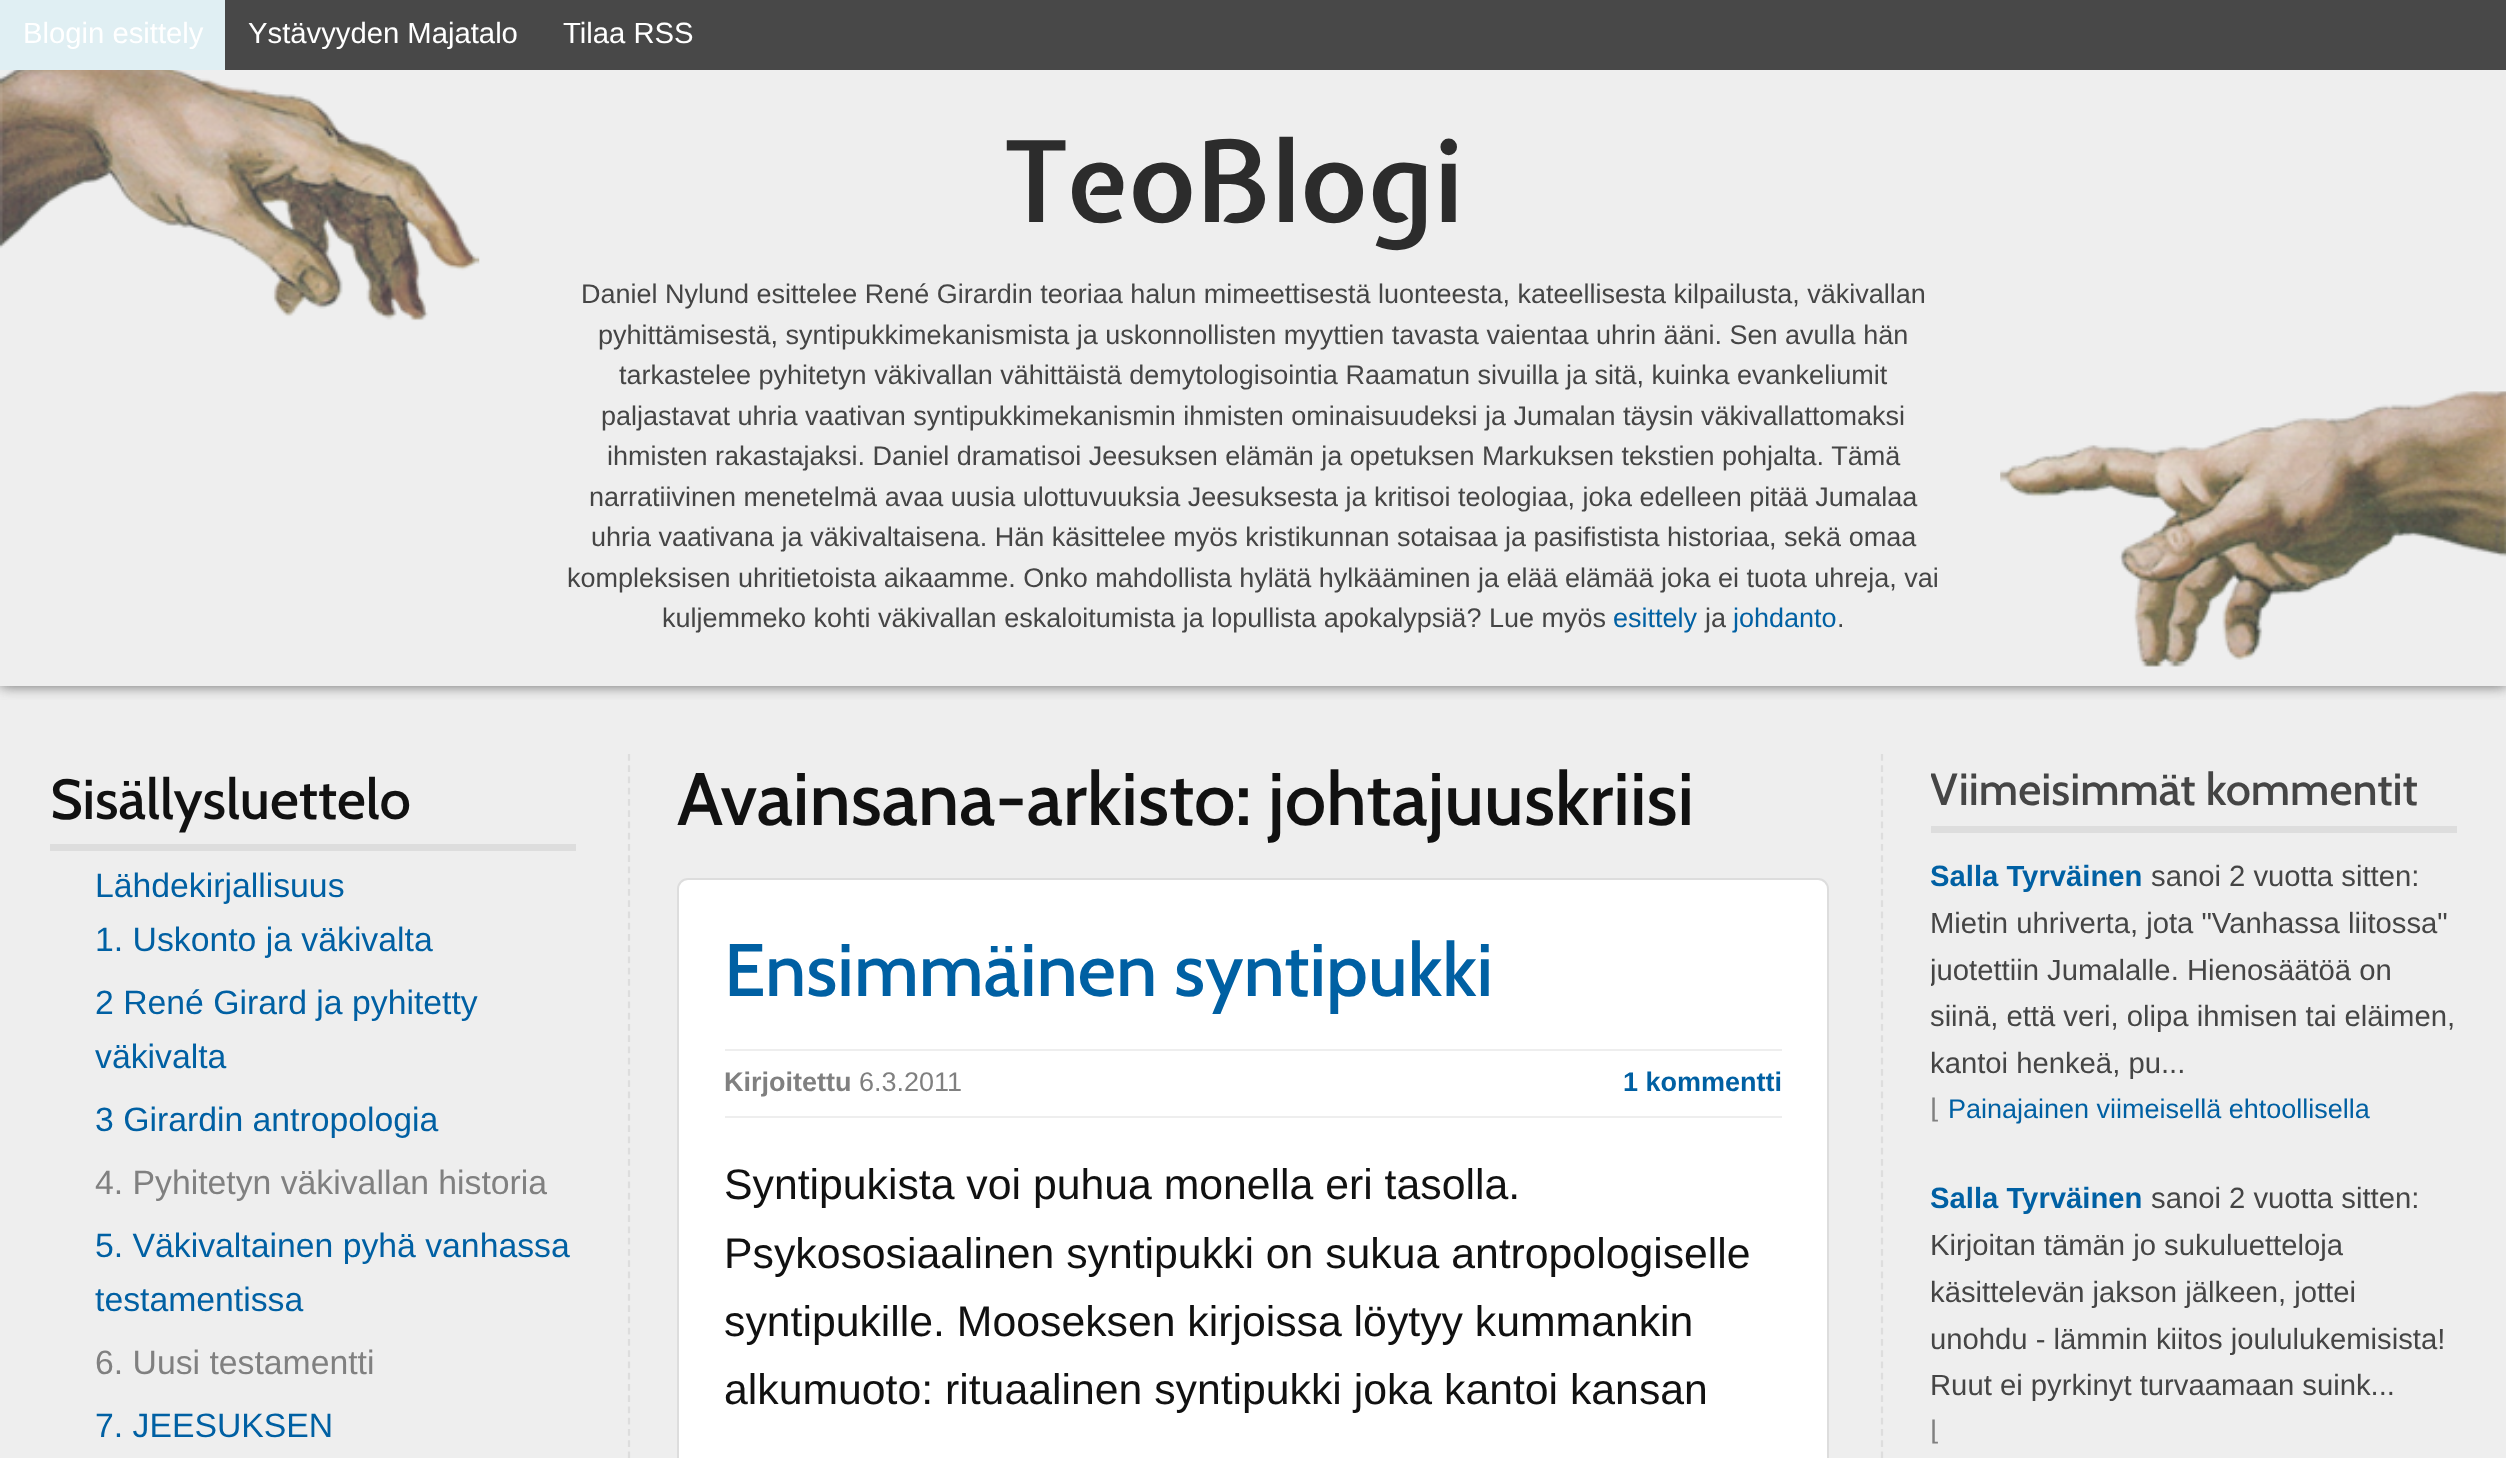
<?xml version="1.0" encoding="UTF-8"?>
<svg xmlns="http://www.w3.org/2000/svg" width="2506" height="1458">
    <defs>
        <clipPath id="clip1"><rect x="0" y="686" width="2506" height="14"/></clipPath>
        <filter id="blur1" x="-50%" y="-200%" width="200%" height="500%"><feGaussianBlur stdDeviation="7"/></filter>
        <clipPath id="clip2"><rect x="1931" y="754" width="526" height="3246"/></clipPath>
    </defs>
    <rect width="100%" height="100%" fill="#EEEEEE"/>
    <g clip-path="url(#clip1)">
        <rect x="0" y="0" width="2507" height="686" fill="#6B6B6B" filter="url(#blur1)"/>
    </g>
    <image x="0" y="70" width="2506" height="597" href="img_01.png"/>
    <rect x="225" y="0" width="2281" height="70" fill="#484848"/>
    <rect x="0" y="0" width="225" height="70" fill="#E0EFF3"/>
    <text x="23" y="43" font-family="Liberation Sans" font-size="29.25" fill="#FFFFFF">Blogin esittely</text>
    <text x="248" y="43" font-family="Liberation Sans" font-size="29.25" fill="#FFFFFF">Ystävyyden Majatalo</text>
    <text x="563" y="43" font-family="Liberation Sans" font-size="29.25" fill="#FFFFFF">Tilaa RSS</text>
    <text x="1006" y="222" font-family="Expletus Sans" font-size="112.5" font-weight="600" fill="#2C2C2C">TeoBlogi</text>
    <text x="581" y="303" font-family="Liberation Sans" font-size="27" fill="#454545">Daniel Nylund esittelee René Girardin teoriaa halun mimeettisestä luonteesta, kateellisesta kilpailusta, väkivallan</text>
    <text x="598" y="344" font-family="Liberation Sans" font-size="27" fill="#454545">pyhittämisestä, syntipukkimekanismista ja uskonnollisten myyttien tavasta vaientaa uhrin ääni. Sen avulla hän</text>
    <text x="619" y="384" font-family="Liberation Sans" font-size="27" fill="#454545">tarkastelee pyhitetyn väkivallan vähittäistä demytologisointia Raamatun sivuilla ja sitä, kuinka evankeliumit</text>
    <text x="601" y="425" font-family="Liberation Sans" font-size="27" fill="#454545">paljastavat uhria vaativan syntipukkimekanismin ihmisten ominaisuudeksi ja Jumalan täysin väkivallattomaksi</text>
    <text x="607" y="465" font-family="Liberation Sans" font-size="27" fill="#454545">ihmisten rakastajaksi. Daniel dramatisoi Jeesuksen elämän ja opetuksen Markuksen tekstien pohjalta. Tämä</text>
    <text x="589" y="506" font-family="Liberation Sans" font-size="27" fill="#454545">narratiivinen menetelmä avaa uusia ulottuvuuksia Jeesuksesta ja kritisoi teologiaa, joka edelleen pitää Jumalaa</text>
    <text x="591" y="546" font-family="Liberation Sans" font-size="27" fill="#454545">uhria vaativana ja väkivaltaisena. Hän käsittelee myös kristikunnan sotaisaa ja pasifistista historiaa, sekä omaa</text>
    <text x="567" y="587" font-family="Liberation Sans" font-size="27" fill="#454545">kompleksisen uhritietoista aikaamme. Onko mahdollista hylätä hylkääminen ja elää elämää joka ei tuota uhreja, vai</text>
    <text x="662" y="627" font-family="Liberation Sans" font-size="27" fill="#454545">kuljemmeko kohti väkivallan eskaloitumista ja lopullista apokalypsiä? Lue myös</text>
    <text x="1613" y="627" font-family="Liberation Sans" font-size="27" fill="#0060A3">esittely</text>
    <text x="1705" y="627" font-family="Liberation Sans" font-size="27" fill="#454545">ja</text>
    <text x="1733" y="627" font-family="Liberation Sans" font-size="27" fill="#0060A3">johdanto</text>
    <text x="1837" y="627" font-family="Liberation Sans" font-size="27" fill="#454545">.</text>
    <path d="M 1882 754 V 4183" fill="none" stroke="#DDDDDD" stroke-width="2.2" stroke-dasharray="6.75 4.5"/>
    <path d="M 629 754 V 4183" fill="none" stroke="#DDDDDD" stroke-width="2.2" stroke-dasharray="6.75 4.5"/>
    <rect x="50" y="844" width="526" height="7" fill="#DDDDDD"/>
    <text x="50" y="819" font-family="Cabin" font-size="56.25" font-weight="500" fill="#111111">Sisällysluettelo</text>
    <text font-family="Liberation Sans" font-size="33.75" fill="#0060A3">
        <tspan x="95" y="897">Lähdekirjallisuus</tspan>
        <tspan x="95" y="951">1. Uskonto ja väkivalta</tspan>
        <tspan x="95" y="1014">2 René Girard ja pyhitetty</tspan>
        <tspan x="95" y="1068">väkivalta</tspan>
        <tspan x="95" y="1131">3 Girardin antropologia</tspan>
    </text>
    <text x="95" y="1194" font-family="Liberation Sans" font-size="33.75" fill="#808080">4. Pyhitetyn väkivallan historia</text>
    <text font-family="Liberation Sans" font-size="33.75" fill="#0060A3">
        <tspan x="95" y="1257">5. Väkivaltainen pyhä vanhassa</tspan>
        <tspan x="95" y="1311">testamentissa</tspan>
    </text>
    <text x="95" y="1374" font-family="Liberation Sans" font-size="33.75" fill="#808080">6. Uusi testamentti</text>
    <text x="95" y="1437" font-family="Liberation Sans" font-size="33.75" fill="#0060A3">7. JEESUKSEN</text>
    <text x="677" y="825" font-family="Cabin" font-size="74.25" font-weight="500" fill="#111111">Avainsana-arkisto: johtajuuskriisi</text>
    <rect x="678" y="879" width="1150" height="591" rx="10" fill="#FFFFFF" stroke="#DDDDDD" stroke-width="2"/>
    <text x="724" y="996" font-family="Cabin" font-size="74.25" font-weight="500" fill="#0060A3">Ensimmäinen syntipukki</text>
    <rect x="725" y="1049" width="1057" height="2" fill="#EEEEEE"/>
    <rect x="725" y="1116" width="1057" height="2" fill="#EEEEEE"/>
    <text x="724" y="1091" font-family="Liberation Sans" font-size="27" font-weight="700" fill="#808080">Kirjoitettu</text>
    <text x="859" y="1091" font-family="Liberation Sans" font-size="27" fill="#808080">6.3.2011</text>
    <text x="1623" y="1091" font-family="Liberation Sans" font-size="27" font-weight="700" fill="#0060A3">1 kommentti</text>
    <text font-family="Liberation Sans" font-size="42.75" fill="#111111">
        <tspan x="724" y="1199">Syntipukista voi puhua monella eri tasolla.</tspan>
        <tspan x="724" y="1268">Psykososiaalinen syntipukki on sukua antropologiselle</tspan>
        <tspan x="724" y="1336">syntipukille. Mooseksen kirjoissa löytyy kummankin</tspan>
        <tspan x="724" y="1404">alkumuoto: rituaalinen syntipukki joka kantoi kansan</tspan>
    </text>
    <rect x="1931" y="826" width="526" height="7" fill="#DDDDDD"/>
    <g clip-path="url(#clip2)">
        <text x="1930" y="805" font-family="Cabin" font-size="45" font-weight="500" fill="#454545">Viimeisimmät kommentit</text>
    </g>
    <text x="1930" y="886" font-family="Liberation Sans" font-size="29.25" font-weight="700" fill="#0060A3">Salla Tyrväinen</text>
    <text x="2151" y="886" font-family="Liberation Sans" font-size="29.25" fill="#454545">sanoi 2 vuotta sitten:</text>
    <text x="1930" y="933" font-family="Liberation Sans" font-size="29.25" fill="#454545">Mietin uhriverta, jota "Vanhassa liitossa"</text>
    <g clip-path="url(#clip2)">
        <text x="1930" y="980" font-family="Liberation Sans" font-size="29.25" fill="#454545">juotettiin Jumalalle. Hienosäätöä on</text>
    </g>
    <text font-family="Liberation Sans" font-size="29.25" fill="#454545">
        <tspan x="1930" y="1026">siinä, että veri, olipa ihmisen tai eläimen,</tspan>
        <tspan x="1930" y="1073">kantoi henkeä, pu...</tspan>
    </text>
    <text x="1930" y="1118" font-family="DejaVu Sans" font-size="27" fill="#808080">⌊</text>
    <text x="1948" y="1118" font-family="Liberation Sans" font-size="27" fill="#0060A3">Painajainen viimeisellä ehtoollisella</text>
    <text x="1930" y="1208" font-family="Liberation Sans" font-size="29.25" font-weight="700" fill="#0060A3">Salla Tyrväinen</text>
    <text x="2151" y="1208" font-family="Liberation Sans" font-size="29.25" fill="#454545">sanoi 2 vuotta sitten:</text>
    <text font-family="Liberation Sans" font-size="29.25" fill="#454545">
        <tspan x="1930" y="1255">Kirjoitan tämän jo sukuluetteloja</tspan>
        <tspan x="1930" y="1302">käsittelevän jakson jälkeen, jottei</tspan>
        <tspan x="1930" y="1349">unohdu - lämmin kiitos joululukemisista!</tspan>
        <tspan x="1930" y="1395">Ruut ei pyrkinyt turvaamaan suink...</tspan>
    </text>
    <text x="1930" y="1440" font-family="DejaVu Sans" font-size="27" fill="#808080">⌊</text>
</svg>
